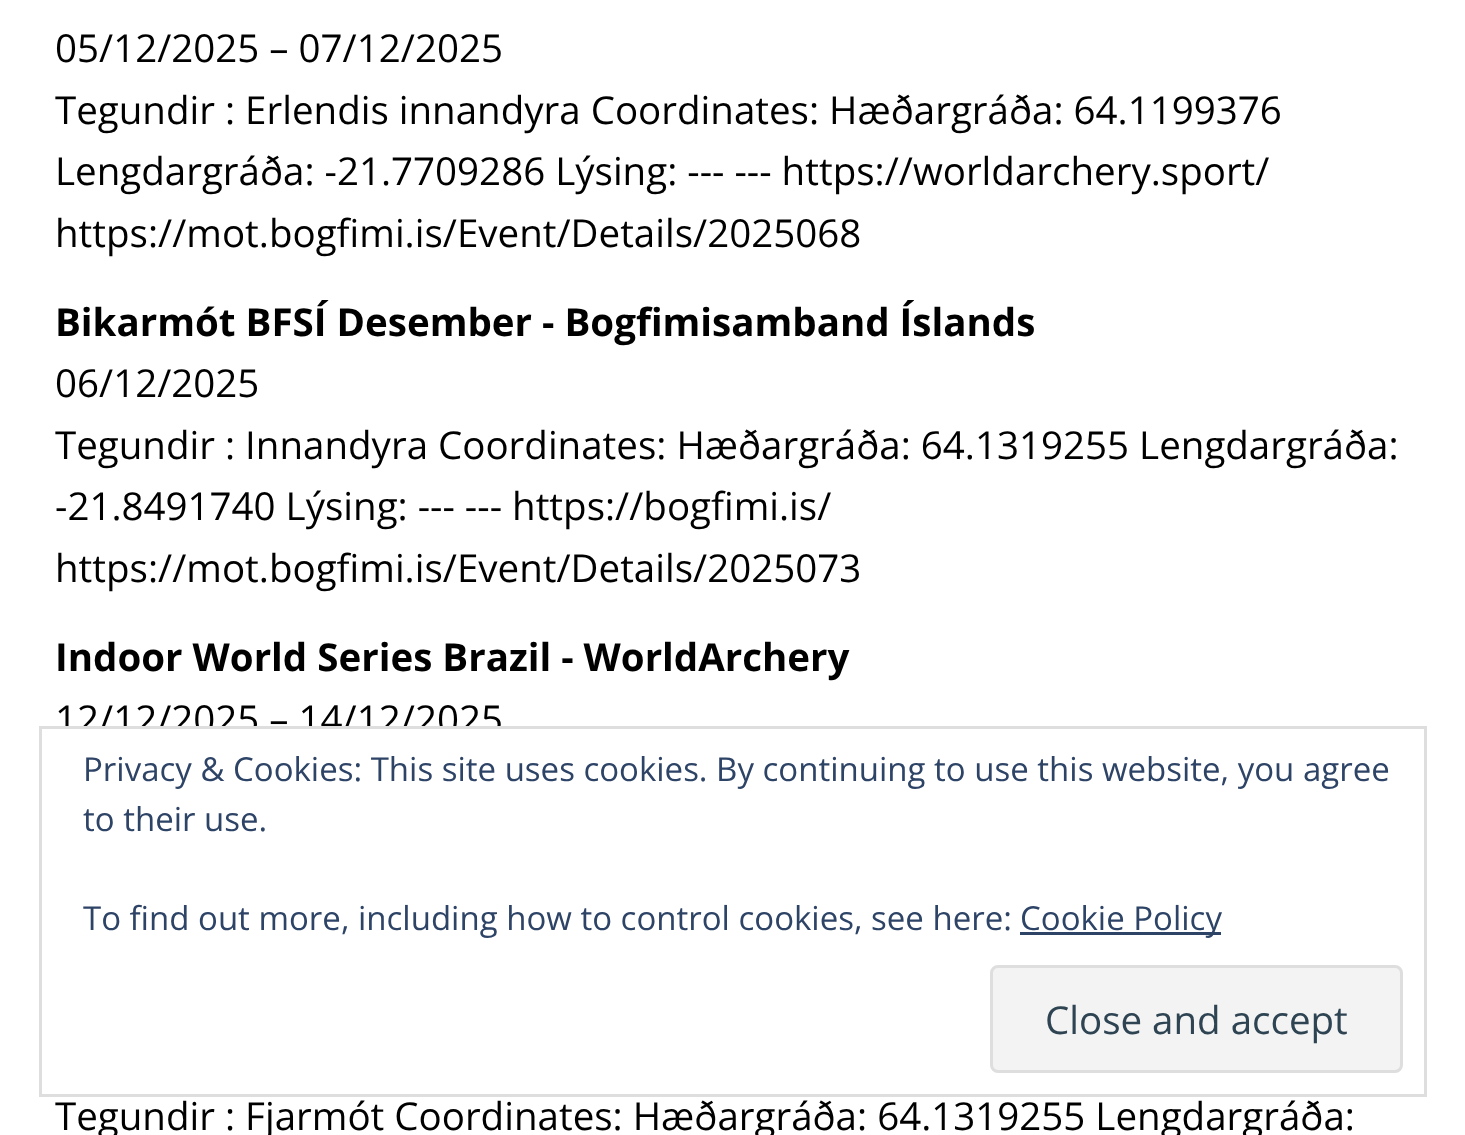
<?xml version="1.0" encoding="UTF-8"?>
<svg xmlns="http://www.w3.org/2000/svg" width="1465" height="1135">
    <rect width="100%" height="100%" fill="#FFFFFF"/>
    <text font-family="Open Sans" font-size="38.5" fill="#000000">
        <tspan x="55" y="62">05/12/2025 – 07/12/2025</tspan>
        <tspan x="55" y="124">Tegundir : Erlendis innandyra Coordinates: Hæðargráða: 64.1199376</tspan>
        <tspan x="55" y="185">Lengdargráða: -21.7709286 Lýsing: --- --- https://worldarchery.sport/</tspan>
        <tspan x="55" y="247">https://mot.bogfimi.is/Event/Details/2025068</tspan>
    </text>
    <text x="55" y="336" font-family="Open Sans" font-size="38.5" font-weight="700" fill="#000000">Bikarmót BFSÍ Desember - Bogfimisamband Íslands</text>
    <text font-family="Open Sans" font-size="38.5" fill="#000000">
        <tspan x="55" y="397">06/12/2025</tspan>
        <tspan x="55" y="459">Tegundir : Innandyra Coordinates: Hæðargráða: 64.1319255 Lengdargráða:</tspan>
        <tspan x="55" y="520">-21.8491740 Lýsing: --- --- https://bogfimi.is/</tspan>
        <tspan x="55" y="582">https://mot.bogfimi.is/Event/Details/2025073</tspan>
    </text>
    <text x="55" y="671" font-family="Open Sans" font-size="38.5" font-weight="700" fill="#000000">Indoor World Series Brazil - WorldArchery</text>
    <text x="55" y="733" font-family="Open Sans" font-size="38.5" fill="#000000">12/12/2025 – 14/12/2025</text>
    <text x="55" y="1130" font-family="Open Sans" font-size="38.5" fill="#000000">Tegundir : Fjarmót Coordinates: Hæðargráða: 64.1319255 Lengdargráða:</text>
    <rect x="65" y="729" width="435" height="5" fill="#FFFFFF"/>
    <rect x="40.5" y="727.5" width="1385" height="368" fill="none" stroke="#DEDEDE" stroke-width="3"/>
    <text font-family="Open Sans" font-size="33" fill="#2E4467">
        <tspan x="83" y="781">Privacy &amp; Cookies: This site uses cookies. By continuing to use this website, you agree</tspan>
        <tspan x="83" y="831">to their use.</tspan>
    </text>
    <text x="83" y="930" font-family="Open Sans" font-size="33" fill="#2E4467">To find out more, including how to control cookies, see here:</text>
    <rect x="1020" y="932" width="201" height="3" fill="#2E4467"/>
    <text x="1020" y="930" font-family="Open Sans" font-size="33" fill="#2E4467">Cookie Policy</text>
    <rect x="991.5" y="966.5" width="410" height="105" rx="6.5" fill="#F3F3F3" stroke="#DEDEDE" stroke-width="3"/>
    <text x="1045" y="1034" font-family="Open Sans" font-size="38.5" fill="#2E4453">Close and accept</text>
</svg>
